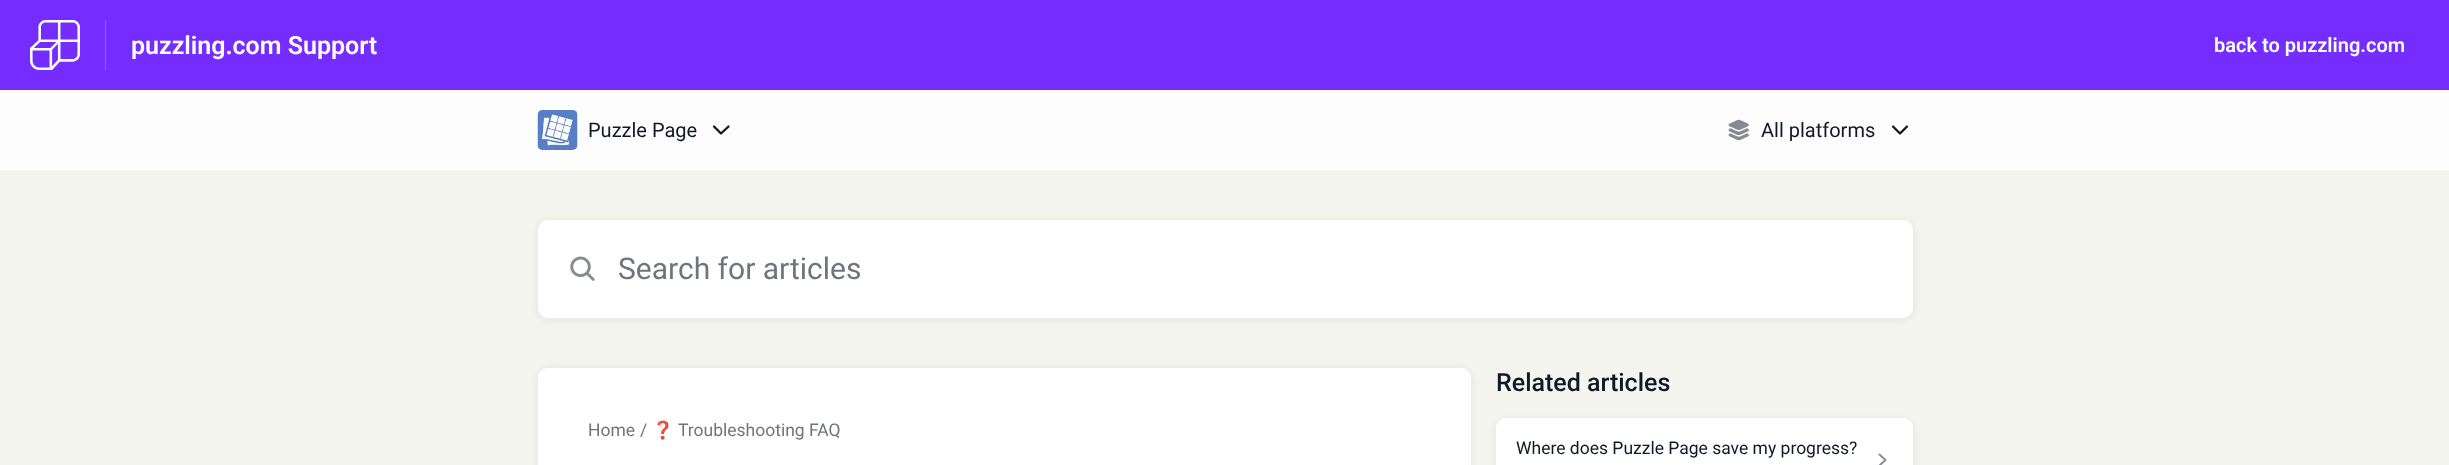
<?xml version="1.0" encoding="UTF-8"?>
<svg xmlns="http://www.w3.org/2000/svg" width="2449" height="465">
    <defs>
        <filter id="blur1" x="-50%" y="-200%" width="200%" height="500%"><feGaussianBlur stdDeviation="5"/></filter>
    </defs>
    <rect width="100%" height="100%" fill="#FDFDFD"/>
    <rect x="0" y="0" width="2449" height="90" fill="#742CFF"/>
    <rect x="105" y="20" width="1" height="50" fill="#9761FF"/>
    <image x="30" y="20" width="50" height="50" href="img_01.png"/>
    <text x="131" y="54" font-family="Roboto" font-size="25" font-weight="600" fill="#FFFFFF">puzzling.com Support</text>
    <text x="2214" y="52" font-family="Roboto" font-size="20" font-weight="600" fill="#FFFFFF">back to puzzling.com</text>
    <image x="537" y="110" width="41" height="40" href="img_02.png"/>
    <text x="588" y="137" font-family="Roboto" font-size="20" fill="#111827">Puzzle Page</text>
    <path d="M 714 126.5 L 721 133.5 L 728.5 126.5" fill="none" stroke="#111827" stroke-width="2.3" stroke-linecap="round" stroke-linejoin="round"/>
    <image x="1728" y="119" width="21" height="22" href="img_03.png"/>
    <text x="1761" y="137" font-family="Roboto" font-size="20" fill="#111827">All platforms</text>
    <path d="M 1893 126.5 L 1900 133.5 L 1907 126.5" fill="none" stroke="#111827" stroke-width="2.3" stroke-linecap="round" stroke-linejoin="round"/>
    <rect x="0" y="170" width="2449" height="295" fill="#F5F5F0"/>
    <rect x="538" y="221" width="1375" height="98" rx="10" fill="#000000" fill-opacity="0.08" filter="url(#blur1)"/>
    <rect x="538" y="220" width="1375" height="98" rx="10" fill="#FFFFFF"/>
    <image x="570" y="256" width="25" height="25" href="img_04.png"/>
    <text x="618" y="279" font-family="Roboto" font-size="30" fill="#70747D">Search for articles</text>
    <rect x="538" y="369" width="933" height="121" rx="10" fill="#000000" fill-opacity="0.08" filter="url(#blur1)"/>
    <path d="M 548 368 H 1461 C 1466.5 368 1471 372.5 1471 378 V 465 H 538 V 378 C 538 372.5 542.5 368 548 368 Z" fill="#FFFFFF"/>
    <text x="588" y="436" font-family="Roboto" font-size="17.5" fill="#70747D">Home</text>
    <text x="640" y="436" font-family="Roboto" font-size="17.5" fill="#70747D">/</text>
    <text x="652" y="436" font-family="Noto Color Emoji" font-size="17.5" fill="#70747D">❓</text>
    <text x="678" y="436" font-family="Roboto" font-size="17.5" fill="#70747D">Troubleshooting FAQ</text>
    <text x="1496" y="391" font-family="Roboto" font-size="25" font-weight="500" fill="#111827">Related articles</text>
    <rect x="1496" y="419" width="417" height="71" rx="10" fill="#000000" fill-opacity="0.08" filter="url(#blur1)"/>
    <path d="M 1506 418 H 1903 C 1908.5 418 1913 422.5 1913 428 V 465 H 1496 V 428 C 1496 422.5 1500.5 418 1506 418 Z" fill="#FFFFFF"/>
    <text x="1516" y="454" font-family="Roboto" font-size="17.5" fill="#111827">Where does Puzzle Page save my progress?</text>
    <path d="M 1879.5 454.5 L 1885.5 460 L 1879.5 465.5" fill="none" stroke="#888C93" stroke-width="1.9" stroke-linecap="round" stroke-linejoin="round"/>
</svg>
